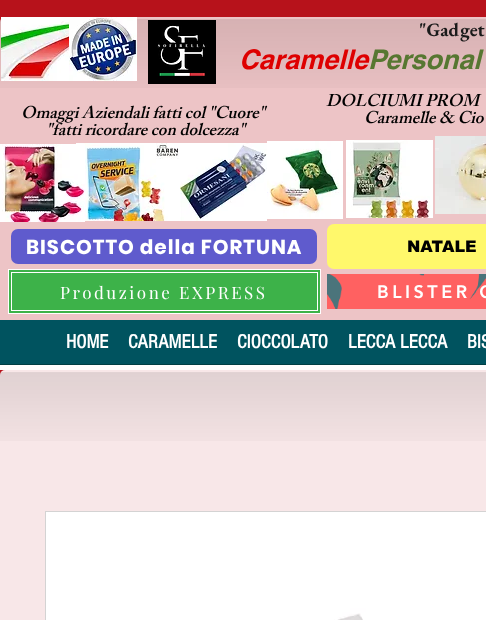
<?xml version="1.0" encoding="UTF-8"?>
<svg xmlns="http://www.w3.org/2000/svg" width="486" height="620">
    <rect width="100%" height="100%" fill="#B7121B"/>
    <rect x="0" y="17" width="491" height="309" rx="5" fill="#EDC4C6"/>
    <image x="0" y="19" width="486" height="69" href="img_01.png"/>
    <image x="1" y="17" width="68" height="64" href="img_02.png"/>
    <image x="69" y="17" width="68" height="64" href="img_03.png"/>
    <image x="148" y="20" width="68" height="64" href="img_04.png"/>
    <text x="419" y="36" font-family="EB Garamond" font-size="19" font-weight="700" fill="#1A1A1A">"Gadget</text>
    <text x="239" y="69" font-family="helvetica" font-size="27" font-weight="700" font-style="italic" fill="#DE0000">Caramelle</text>
    <text x="368" y="69" font-family="helvetica" font-size="27" font-weight="700" font-style="italic" fill="#577731">Personal</text>
    <text x="21" y="118" font-family="'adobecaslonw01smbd'" font-size="17" font-weight="600" font-style="italic" fill="#000000">Omaggi Aziendali fatti col "Cuore"</text>
    <text x="46" y="135" font-family="'adobecaslonw01smbd'" font-size="17" font-weight="600" font-style="italic" fill="#000000">"fatti ricordare con dolcezza"</text>
    <text x="326" y="106" font-family="'adobecaslonw01smbd'" font-size="17" font-weight="600" font-style="italic" fill="#000000">DOLCIUMI PROM</text>
    <text x="364" y="123" font-family="'adobecaslonw01smbd'" font-size="17" font-weight="600" font-style="italic" fill="#000000">Caramelle &amp; Cio</text>
    <image x="76" y="143" width="104" height="78" href="img_06.png"/>
    <image x="0" y="144" width="85" height="78" href="img_05.png"/>
    <image x="180" y="143" width="87" height="78" href="img_07.png"/>
    <image x="267" y="141" width="76" height="78" href="img_08.png"/>
    <image x="346" y="140" width="87" height="78" href="img_09.png"/>
    <image x="435" y="136" width="51" height="78" href="img_10.png"/>
    <rect x="11" y="229" width="306" height="35" rx="7" fill="#5F5BCD"/>
    <text x="26" y="254" font-family="Poppins" font-size="20" font-weight="700" letter-spacing="1" fill="#FFFFFF">BISCOTTO della FORTUNA</text>
    <rect x="327" y="224" width="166" height="45" rx="7" fill="#FFF86B"/>
    <text x="407" y="252" font-family="arial" font-size="16" font-weight="900" fill="#000000">NATALE</text>
    <rect x="8.5" y="269.5" width="312" height="44" fill="#3DB249" stroke="#FFFFFF"/>
    <rect x="11.5" y="272.5" width="306" height="38" fill="none" stroke="#FFFFFF"/>
    <text x="60" y="299" font-family="Playfair Display" font-size="17" letter-spacing="2.5" fill="#FFFFFF">Produzione EXPRESS</text>
    <rect x="327" y="274" width="159" height="35" fill="#FF6161"/>
    <image x="327" y="274" width="159" height="35" href="img_11.png"/>
    <text x="377" y="298" font-family="'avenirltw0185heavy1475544'" font-size="18" font-weight="900" letter-spacing="3.5" fill="#FFFFFF">BLISTER C</text>
    <rect x="0" y="365" width="486" height="5" fill="#FFFFFF"/>
    <rect x="0" y="320" width="486" height="44" fill="#00535F"/>
    <rect x="0" y="364" width="486" height="1" fill="#003F44"/>
    <text x="66" y="348" font-family="'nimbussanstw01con'" font-size="20" font-weight="700" fill="#FFFFFF">HOME</text>
    <text x="128" y="348" font-family="'nimbussanstw01con'" font-size="20" font-weight="700" fill="#FFFFFF">CARAMELLE</text>
    <text x="237" y="348" font-family="'nimbussanstw01con'" font-size="20" font-weight="700" fill="#FFFFFF">CIOCCOLATO</text>
    <text x="348" y="348" font-family="'nimbussanstw01con'" font-size="20" font-weight="700" fill="#FFFFFF">LECCA LECCA</text>
    <text x="467" y="348" font-family="'nimbussanstw01con'" font-size="20" font-weight="700" fill="#FFFFFF">BIS</text>
    <rect x="0" y="370" width="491" height="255" rx="5" fill="#F8E7E8"/>
    <image x="0" y="372" width="486" height="69" href="img_12.png"/>
    <rect x="45.5" y="511.5" width="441" height="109" fill="none" stroke="#D4D3D3"/>
    <image x="46" y="512" width="440" height="108" href="img_13.png"/>
</svg>
